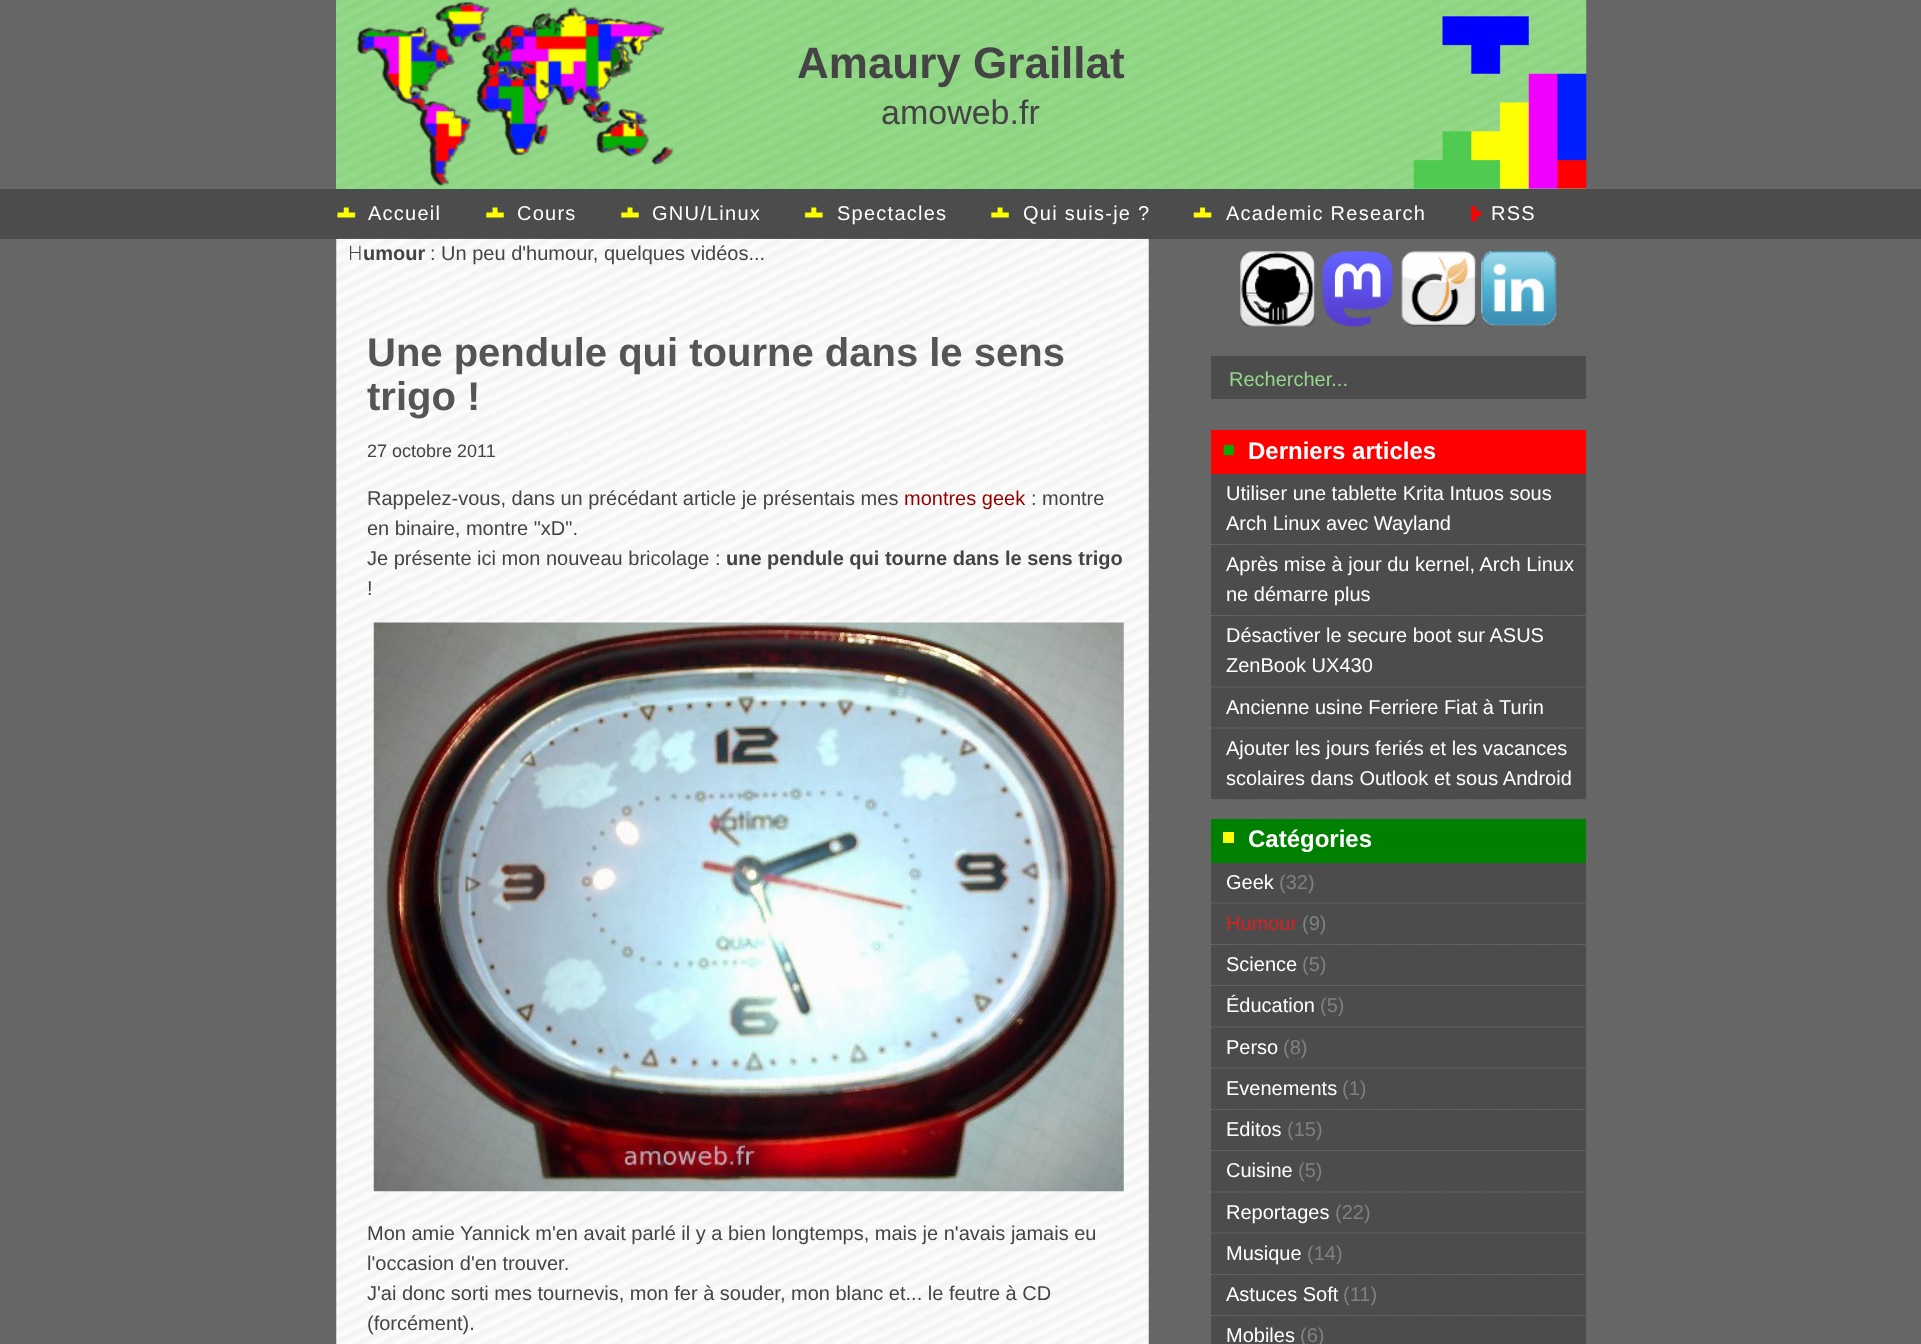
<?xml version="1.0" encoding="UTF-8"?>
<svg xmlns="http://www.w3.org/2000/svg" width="1921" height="1344">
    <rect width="100%" height="100%" fill="#4C4C4C"/>
    <rect x="0" y="0" width="1921" height="189" fill="#666666"/>
    <rect x="336" y="0" width="1250" height="189" fill="#76E387"/>
    <image x="336" y="0" width="1251" height="189" href="img_01.png"/>
    <text x="797" y="78" font-family="Liberation Sans" font-size="44" font-weight="700" fill="#444444">Amaury Graillat</text>
    <text x="881" y="124" font-family="Liberation Sans" font-size="34" fill="#444444">amoweb.fr</text>
    <image x="336" y="207" width="20" height="11" href="img_02.png"/>
    <text x="368" y="220" font-family="Liberation Sans" font-size="20" letter-spacing="1.25" fill="#FFFFFF">Accueil</text>
    <image x="485" y="207" width="20" height="11" href="img_03.png"/>
    <text x="517" y="220" font-family="Liberation Sans" font-size="20" letter-spacing="1.25" fill="#FFFFFF">Cours</text>
    <image x="620" y="207" width="20" height="11" href="img_04.png"/>
    <text x="652" y="220" font-family="Liberation Sans" font-size="20" letter-spacing="1.25" fill="#FFFFFF">GNU/Linux</text>
    <image x="804" y="207" width="20" height="11" href="img_05.png"/>
    <text x="837" y="220" font-family="Liberation Sans" font-size="20" letter-spacing="1.25" fill="#FFFFFF">Spectacles</text>
    <image x="990" y="207" width="20" height="11" href="img_03.png"/>
    <text x="1023" y="220" font-family="Liberation Sans" font-size="20" letter-spacing="1.25" fill="#FFFFFF">Qui suis-je ?</text>
    <image x="1193" y="207" width="19" height="11" href="img_06.png"/>
    <text x="1226" y="220" font-family="Liberation Sans" font-size="20" letter-spacing="1.25" fill="#FFFFFF">Academic Research</text>
    <image x="1471" y="205" width="11" height="20" href="img_07.png"/>
    <text x="1491" y="220" font-family="Liberation Sans" font-size="20" letter-spacing="1.25" fill="#FFFFFF">RSS</text>
    <rect x="0" y="239" width="1921" height="1105" fill="#666666"/>
    <image x="336" y="238" width="813" height="1106" href="img_08.png"/>
    <text x="348" y="260" font-family="Noto Sans" font-size="20" font-weight="300" fill="#444444">H</text>
    <text x="363" y="260" font-family="Liberation Sans" font-size="20" font-weight="700" fill="#444444">umour</text>
    <text x="430" y="260" font-family="Liberation Sans" font-size="20" fill="#444444">: Un peu d'humour, quelques vidéos...</text>
    <text font-family="Liberation Sans" font-size="40" font-weight="700" fill="#555555">
        <tspan x="367" y="366">Une pendule qui tourne dans le sens</tspan>
        <tspan x="367" y="410">trigo !</tspan>
    </text>
    <text x="367" y="457" font-family="Liberation Sans" font-size="18" fill="#444444">27 octobre 2011</text>
    <text x="367" y="505" font-family="Liberation Sans" font-size="20" fill="#444444">Rappelez-vous, dans un précédant article je présentais mes</text>
    <text x="904" y="505" font-family="Liberation Sans" font-size="20" fill="#910000">montres geek</text>
    <text x="1031" y="505" font-family="Liberation Sans" font-size="20" fill="#444444">: montre</text>
    <text font-family="Liberation Sans" font-size="20" fill="#444444">
        <tspan x="367" y="535">en binaire, montre "xD".</tspan>
        <tspan x="367" y="565">Je présente ici mon nouveau bricolage :</tspan>
    </text>
    <text x="726" y="565" font-family="Liberation Sans" font-size="20" font-weight="700" fill="#444444">une pendule qui tourne dans le sens trigo</text>
    <text x="367" y="595" font-family="Liberation Sans" font-size="20" fill="#444444">!</text>
    <image x="373" y="622" width="751" height="570" href="img_09.png"/>
    <text font-family="Liberation Sans" font-size="20" fill="#444444">
        <tspan x="367" y="1240">Mon amie Yannick m'en avait parlé il y a bien longtemps, mais je n'avais jamais eu</tspan>
        <tspan x="367" y="1270">l'occasion d'en trouver.</tspan>
        <tspan x="367" y="1300">J'ai donc sorti mes tournevis, mon fer à souder, mon blanc et... le feutre à CD</tspan>
        <tspan x="367" y="1330">(forcément).</tspan>
    </text>
    <image x="1240" y="251" width="75" height="76" href="img_10.png"/>
    <image x="1322" y="251" width="71" height="76" href="img_11.png"/>
    <image x="1401" y="251" width="76" height="76" href="img_12.png"/>
    <image x="1481" y="251" width="76" height="76" href="img_13.png"/>
    <rect x="1211" y="356" width="375" height="43" fill="#4C4C4C"/>
    <text x="1229" y="386" font-family="Liberation Sans" font-size="20" fill="#95D88A">Rechercher...</text>
    <rect x="1211" y="430" width="375" height="44" fill="#FF0000"/>
    <image x="1223" y="444" width="11" height="12" href="img_14.png"/>
    <text x="1248" y="459" font-family="Liberation Sans" font-size="24" font-weight="700" fill="#FFFFFF">Derniers articles</text>
    <rect x="1211" y="474" width="375" height="326" fill="#4C4C4C"/>
    <path d="M 1211 544.5 H 1586" fill="none" stroke="#777777" stroke-width="1.2" stroke-dasharray="1.25 1.25"/>
    <text font-family="Liberation Sans" font-size="20" fill="#FFFFFF">
        <tspan x="1226" y="500">Utiliser une tablette Krita Intuos sous</tspan>
        <tspan x="1226" y="530">Arch Linux avec Wayland</tspan>
    </text>
    <path d="M 1211 615.5 H 1586" fill="none" stroke="#777777" stroke-width="1.2" stroke-dasharray="1.25 1.25"/>
    <text font-family="Liberation Sans" font-size="20" fill="#FFFFFF">
        <tspan x="1226" y="571">Après mise à jour du kernel, Arch Linux</tspan>
        <tspan x="1226" y="601">ne démarre plus</tspan>
    </text>
    <path d="M 1211 687 H 1586" fill="none" stroke="#777777" stroke-width="1.2" stroke-dasharray="1.25 1.25"/>
    <text font-family="Liberation Sans" font-size="20" fill="#FFFFFF">
        <tspan x="1226" y="642">Désactiver le secure boot sur ASUS</tspan>
        <tspan x="1226" y="672">ZenBook UX430</tspan>
    </text>
    <path d="M 1211 728 H 1586" fill="none" stroke="#777777" stroke-width="1.2" stroke-dasharray="1.25 1.25"/>
    <text x="1226" y="714" font-family="Liberation Sans" font-size="20" fill="#FFFFFF">Ancienne usine Ferriere Fiat à Turin</text>
    <path d="M 1211 799.5 H 1586" fill="none" stroke="#777777" stroke-width="1.2" stroke-dasharray="1.25 1.25"/>
    <text font-family="Liberation Sans" font-size="20" fill="#FFFFFF">
        <tspan x="1226" y="755">Ajouter les jours feriés et les vacances</tspan>
        <tspan x="1226" y="785">scolaires dans Outlook et sous Android</tspan>
    </text>
    <rect x="1211" y="819" width="375" height="44" fill="#008000"/>
    <rect x="1223" y="832" width="11" height="11" fill="#FFFF03"/>
    <text x="1248" y="847" font-family="Liberation Sans" font-size="24" font-weight="700" fill="#FFFFFF">Catégories</text>
    <rect x="1211" y="863" width="375" height="481" fill="#4C4C4C"/>
    <path d="M 1211 903 H 1586" fill="none" stroke="#777777" stroke-width="1.2" stroke-dasharray="1.25 1.25"/>
    <text x="1226" y="889" font-family="Liberation Sans" font-size="20" fill="#FFFFFF">Geek</text>
    <text x="1279" y="889" font-family="Liberation Sans" font-size="20" fill="#808080">(32)</text>
    <path d="M 1211 944.5 H 1586" fill="none" stroke="#777777" stroke-width="1.2" stroke-dasharray="1.25 1.25"/>
    <text x="1226" y="930" font-family="Liberation Sans" font-size="20" fill="#DB2020">Humour</text>
    <text x="1302" y="930" font-family="Liberation Sans" font-size="20" fill="#808080">(9)</text>
    <path d="M 1211 985.5 H 1586" fill="none" stroke="#777777" stroke-width="1.2" stroke-dasharray="1.25 1.25"/>
    <text x="1226" y="971" font-family="Liberation Sans" font-size="20" fill="#FFFFFF">Science</text>
    <text x="1302" y="971" font-family="Liberation Sans" font-size="20" fill="#808080">(5)</text>
    <path d="M 1211 1027 H 1586" fill="none" stroke="#777777" stroke-width="1.2" stroke-dasharray="1.25 1.25"/>
    <text x="1226" y="1012" font-family="Liberation Sans" font-size="20" fill="#FFFFFF">Éducation</text>
    <text x="1320" y="1012" font-family="Liberation Sans" font-size="20" fill="#808080">(5)</text>
    <path d="M 1211 1068 H 1586" fill="none" stroke="#777777" stroke-width="1.2" stroke-dasharray="1.25 1.25"/>
    <text x="1226" y="1054" font-family="Liberation Sans" font-size="20" fill="#FFFFFF">Perso</text>
    <text x="1283" y="1054" font-family="Liberation Sans" font-size="20" fill="#808080">(8)</text>
    <path d="M 1211 1109.5 H 1586" fill="none" stroke="#777777" stroke-width="1.2" stroke-dasharray="1.25 1.25"/>
    <text x="1226" y="1095" font-family="Liberation Sans" font-size="20" fill="#FFFFFF">Evenements</text>
    <text x="1342" y="1095" font-family="Liberation Sans" font-size="20" fill="#808080">(1)</text>
    <path d="M 1211 1150.5 H 1586" fill="none" stroke="#777777" stroke-width="1.2" stroke-dasharray="1.25 1.25"/>
    <text x="1226" y="1136" font-family="Liberation Sans" font-size="20" fill="#FFFFFF">Editos</text>
    <text x="1287" y="1136" font-family="Liberation Sans" font-size="20" fill="#808080">(15)</text>
    <path d="M 1211 1192 H 1586" fill="none" stroke="#777777" stroke-width="1.2" stroke-dasharray="1.25 1.25"/>
    <text x="1226" y="1177" font-family="Liberation Sans" font-size="20" fill="#FFFFFF">Cuisine</text>
    <text x="1298" y="1177" font-family="Liberation Sans" font-size="20" fill="#808080">(5)</text>
    <path d="M 1211 1233 H 1586" fill="none" stroke="#777777" stroke-width="1.2" stroke-dasharray="1.25 1.25"/>
    <text x="1226" y="1219" font-family="Liberation Sans" font-size="20" fill="#FFFFFF">Reportages</text>
    <text x="1335" y="1219" font-family="Liberation Sans" font-size="20" fill="#808080">(22)</text>
    <path d="M 1211 1274.5 H 1586" fill="none" stroke="#777777" stroke-width="1.2" stroke-dasharray="1.25 1.25"/>
    <text x="1226" y="1260" font-family="Liberation Sans" font-size="20" fill="#FFFFFF">Musique</text>
    <text x="1307" y="1260" font-family="Liberation Sans" font-size="20" fill="#808080">(14)</text>
    <path d="M 1211 1315.5 H 1586" fill="none" stroke="#777777" stroke-width="1.2" stroke-dasharray="1.25 1.25"/>
    <text x="1226" y="1301" font-family="Liberation Sans" font-size="20" fill="#FFFFFF">Astuces Soft</text>
    <text x="1343" y="1301" font-family="Liberation Sans" font-size="20" fill="#808080">(11)</text>
    <text x="1226" y="1342" font-family="Liberation Sans" font-size="20" fill="#FFFFFF">Mobiles</text>
    <text x="1300" y="1342" font-family="Liberation Sans" font-size="20" fill="#808080">(6)</text>
</svg>
